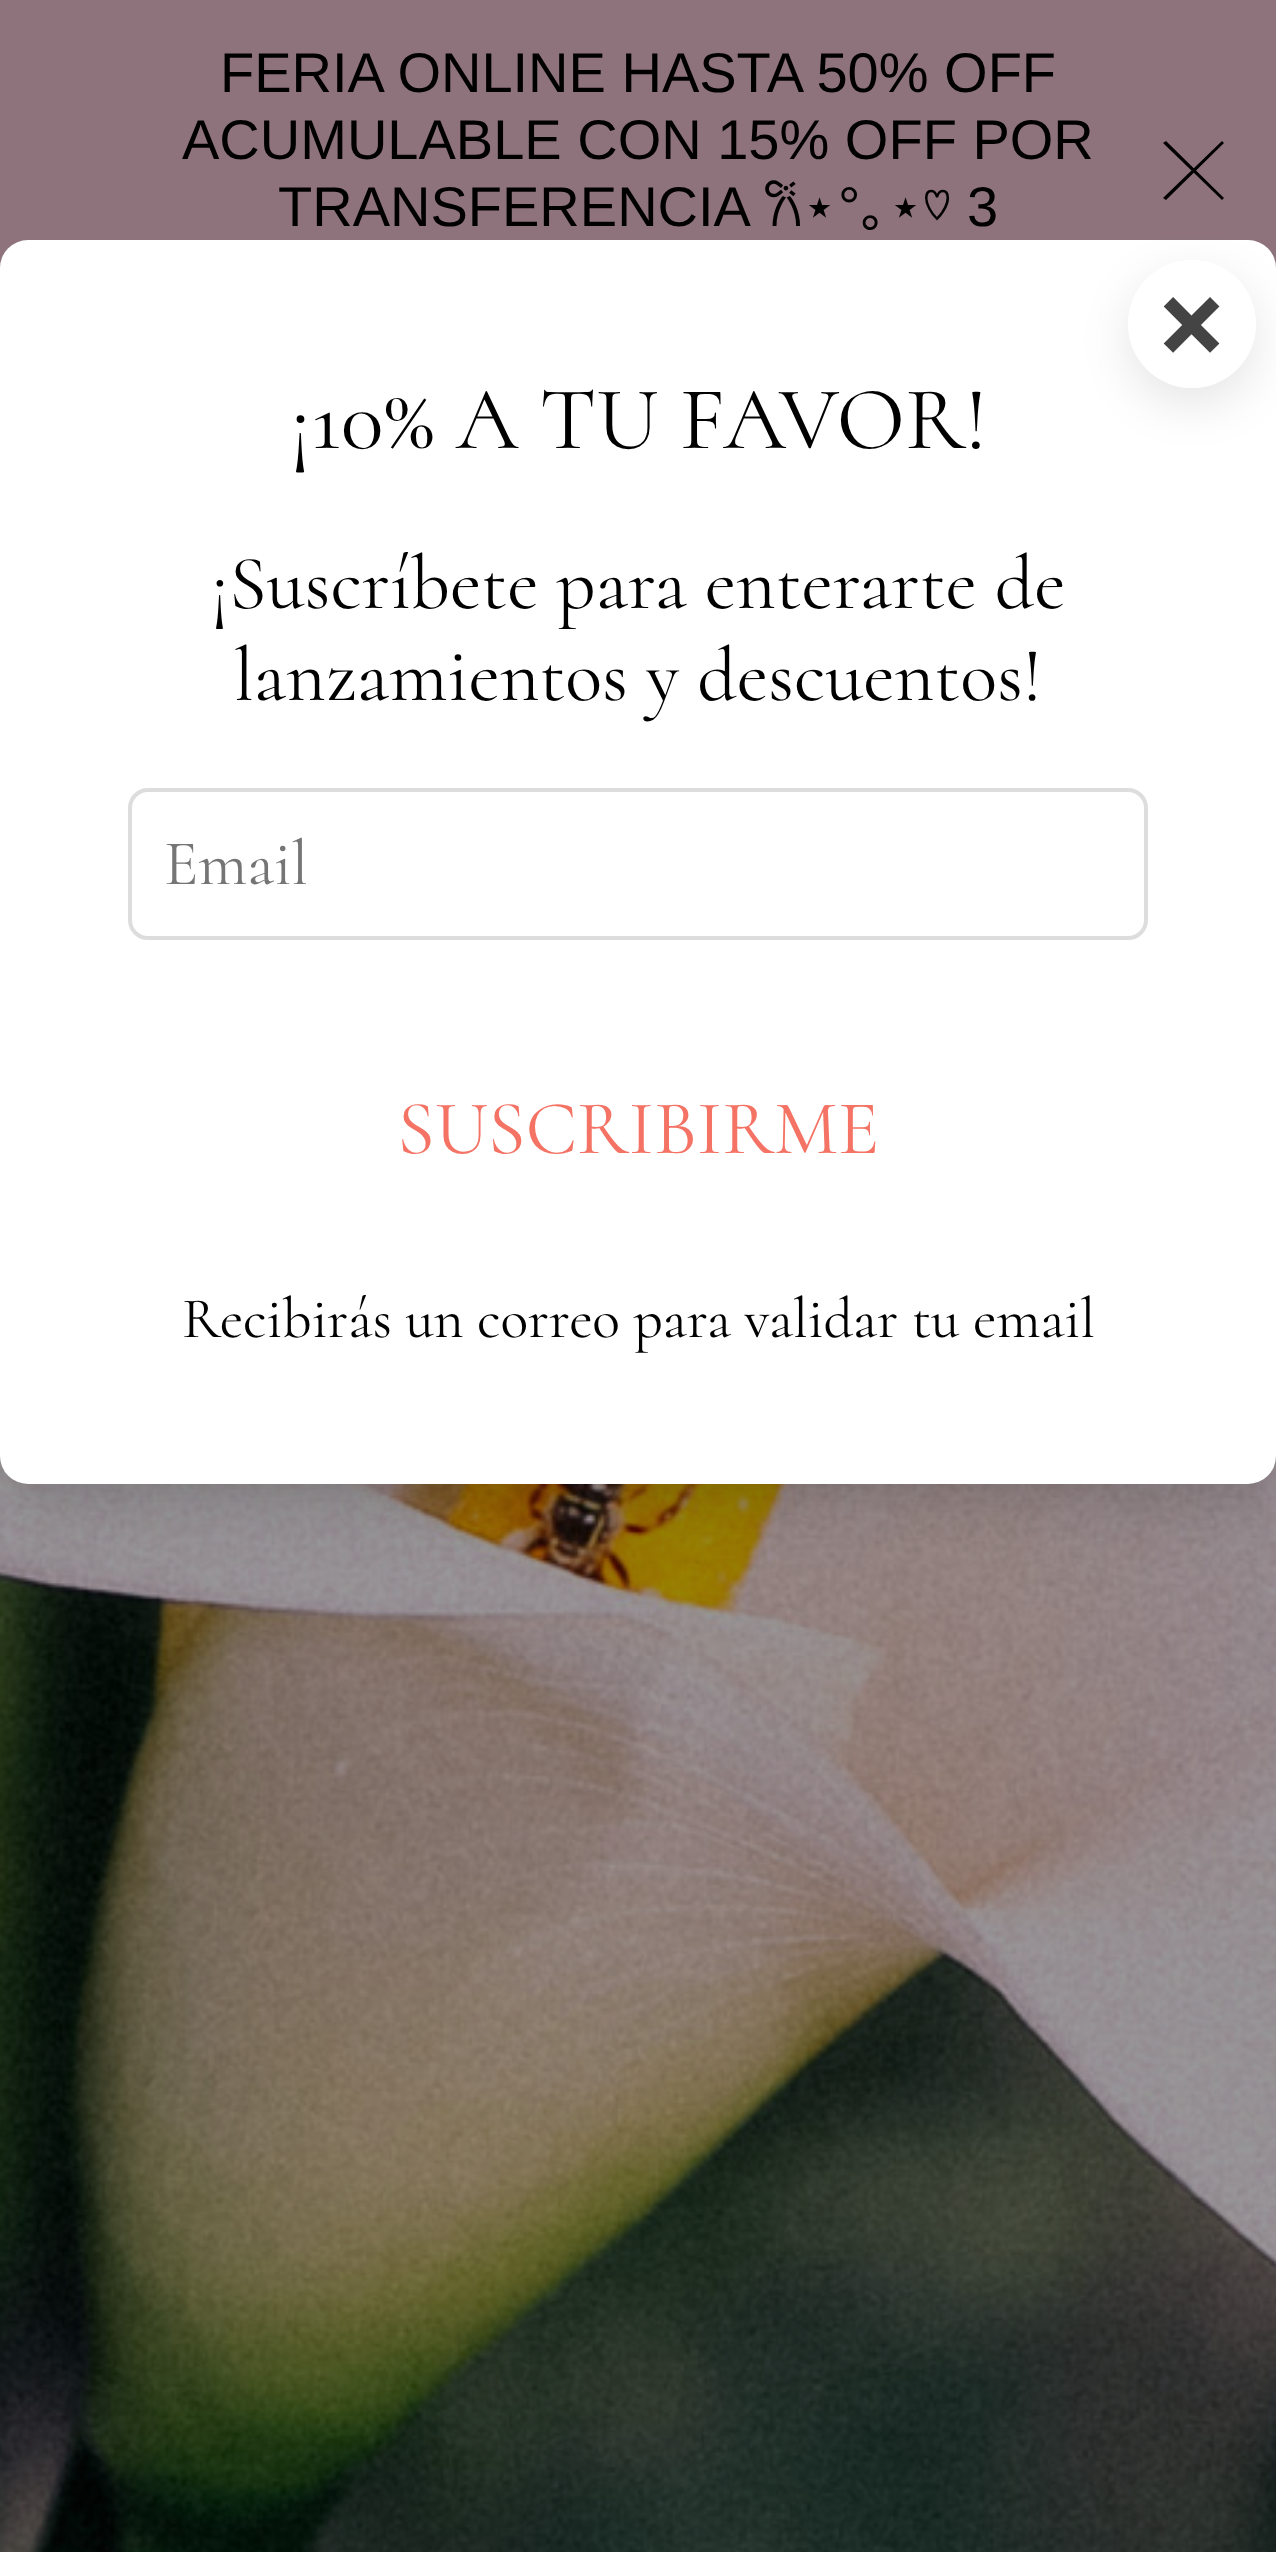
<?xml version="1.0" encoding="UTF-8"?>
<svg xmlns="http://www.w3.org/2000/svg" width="1276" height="2552">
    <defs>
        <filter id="blur1" x="-50%" y="-200%" width="200%" height="500%"><feGaussianBlur stdDeviation="12"/></filter>
        <filter id="blur2" x="-50%" y="-200%" width="200%" height="500%"><feGaussianBlur stdDeviation="30"/></filter>
        <clipPath id="clip1"><path d="M 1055 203 H 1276 V 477 H 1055 Z M 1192 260 C 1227.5 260 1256 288.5 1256 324 C 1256 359.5 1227.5 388 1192 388 C 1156.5 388 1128 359.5 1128 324 C 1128 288.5 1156.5 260 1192 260 Z" clip-rule="evenodd"/></clipPath>
        <filter id="blur3" x="-50%" y="-200%" width="200%" height="500%"><feGaussianBlur stdDeviation="24"/></filter>
    </defs>
    <rect width="100%" height="100%" fill="#FFFFFF"/>
    <rect x="0" y="0" width="1276" height="268" fill="#8F737C"/>
    <text x="220" y="92" font-family="Liberation Sans" font-size="56" fill="#000000">FERIA ONLINE HASTA 50% OFF</text>
    <text x="182" y="159" font-family="Liberation Sans" font-size="56" fill="#000000">ACUMULABLE CON 15% OFF POR</text>
    <path d="M 1163 143 L 1166 141 L 1224 198 L 1222 200 Z M 1222 141 L 1224 143 L 1166 200 L 1163 198 Z" fill="#000000"/>
    <text x="278" y="226" font-family="Liberation Sans" font-size="56" fill="#000000">TRANSFERENCIA</text>
    <text x="764" y="226" font-family="Noto Sans Linear A" font-size="56" fill="#000000">𐙚</text>
    <text x="802" y="226" font-family="DejaVu Sans" font-size="56" fill="#000000">⋆</text>
    <text x="838" y="226" font-family="Liberation Sans" font-size="56" fill="#000000">°</text>
    <text x="888" y="226" font-family="DejaVu Sans" font-size="56" fill="#000000">⋆</text>
    <text x="923" y="226" font-family="IPAGothic" font-size="56" fill="#000000">♡</text>
    <text x="967" y="226" font-family="Liberation Sans" font-size="56" fill="#000000">3</text>
    <text x="860" y="226" font-family="IPAGothic" font-size="56" fill="#000000">｡</text>
    <image x="0" y="1456" width="1276" height="1096" href="img_01.png"/>
    <rect x="8" y="264" width="1260" height="1228" rx="20" fill="#000000" fill-opacity="0.05" filter="url(#blur1)"/>
    <rect x="12" y="292" width="1252" height="1220" rx="16" fill="#000000" fill-opacity="0.1" filter="url(#blur2)"/>
    <rect x="0" y="240" width="1276" height="1244" rx="28" fill="#FFFFFF"/>
    <g clip-path="url(#clip1)">
        <rect x="1128" y="276" width="128" height="128" rx="64" fill="#000000" fill-opacity="0.1" filter="url(#blur3)"/>
    </g>
    <circle cx="1192" cy="324" r="64" fill="#FFFFFF" fill-opacity="0.7"/>
    <text x="1157" y="361" font-family="DejaVu Sans Mono" font-size="115" font-weight="700" fill="#444444">×</text>
    <text x="289" y="448" font-family="Cormorant" font-size="89.5" fill="#000000">¡10% A TU FAVOR!</text>
    <text x="210" y="608" font-family="Cormorant" font-size="76.75" fill="#000000">¡Suscríbete para enterarte de</text>
    <text x="234" y="700" font-family="Cormorant" font-size="76.75" fill="#000000">lanzamientos y descuentos!</text>
    <rect x="130" y="790" width="1016" height="148" rx="18" fill="none" stroke="#DDDDDD" stroke-width="4"/>
    <text x="164" y="884" font-family="Cormorant" font-size="64" fill="#757575">Email</text>
    <text x="397" y="1153" font-family="Cormorant" font-size="76.75" fill="#F47365">SUSCRIBIRME</text>
    <text x="182" y="1337" font-family="Cormorant" font-size="57.6" fill="#000000">Recibirás un correo para validar tu email</text>
</svg>
